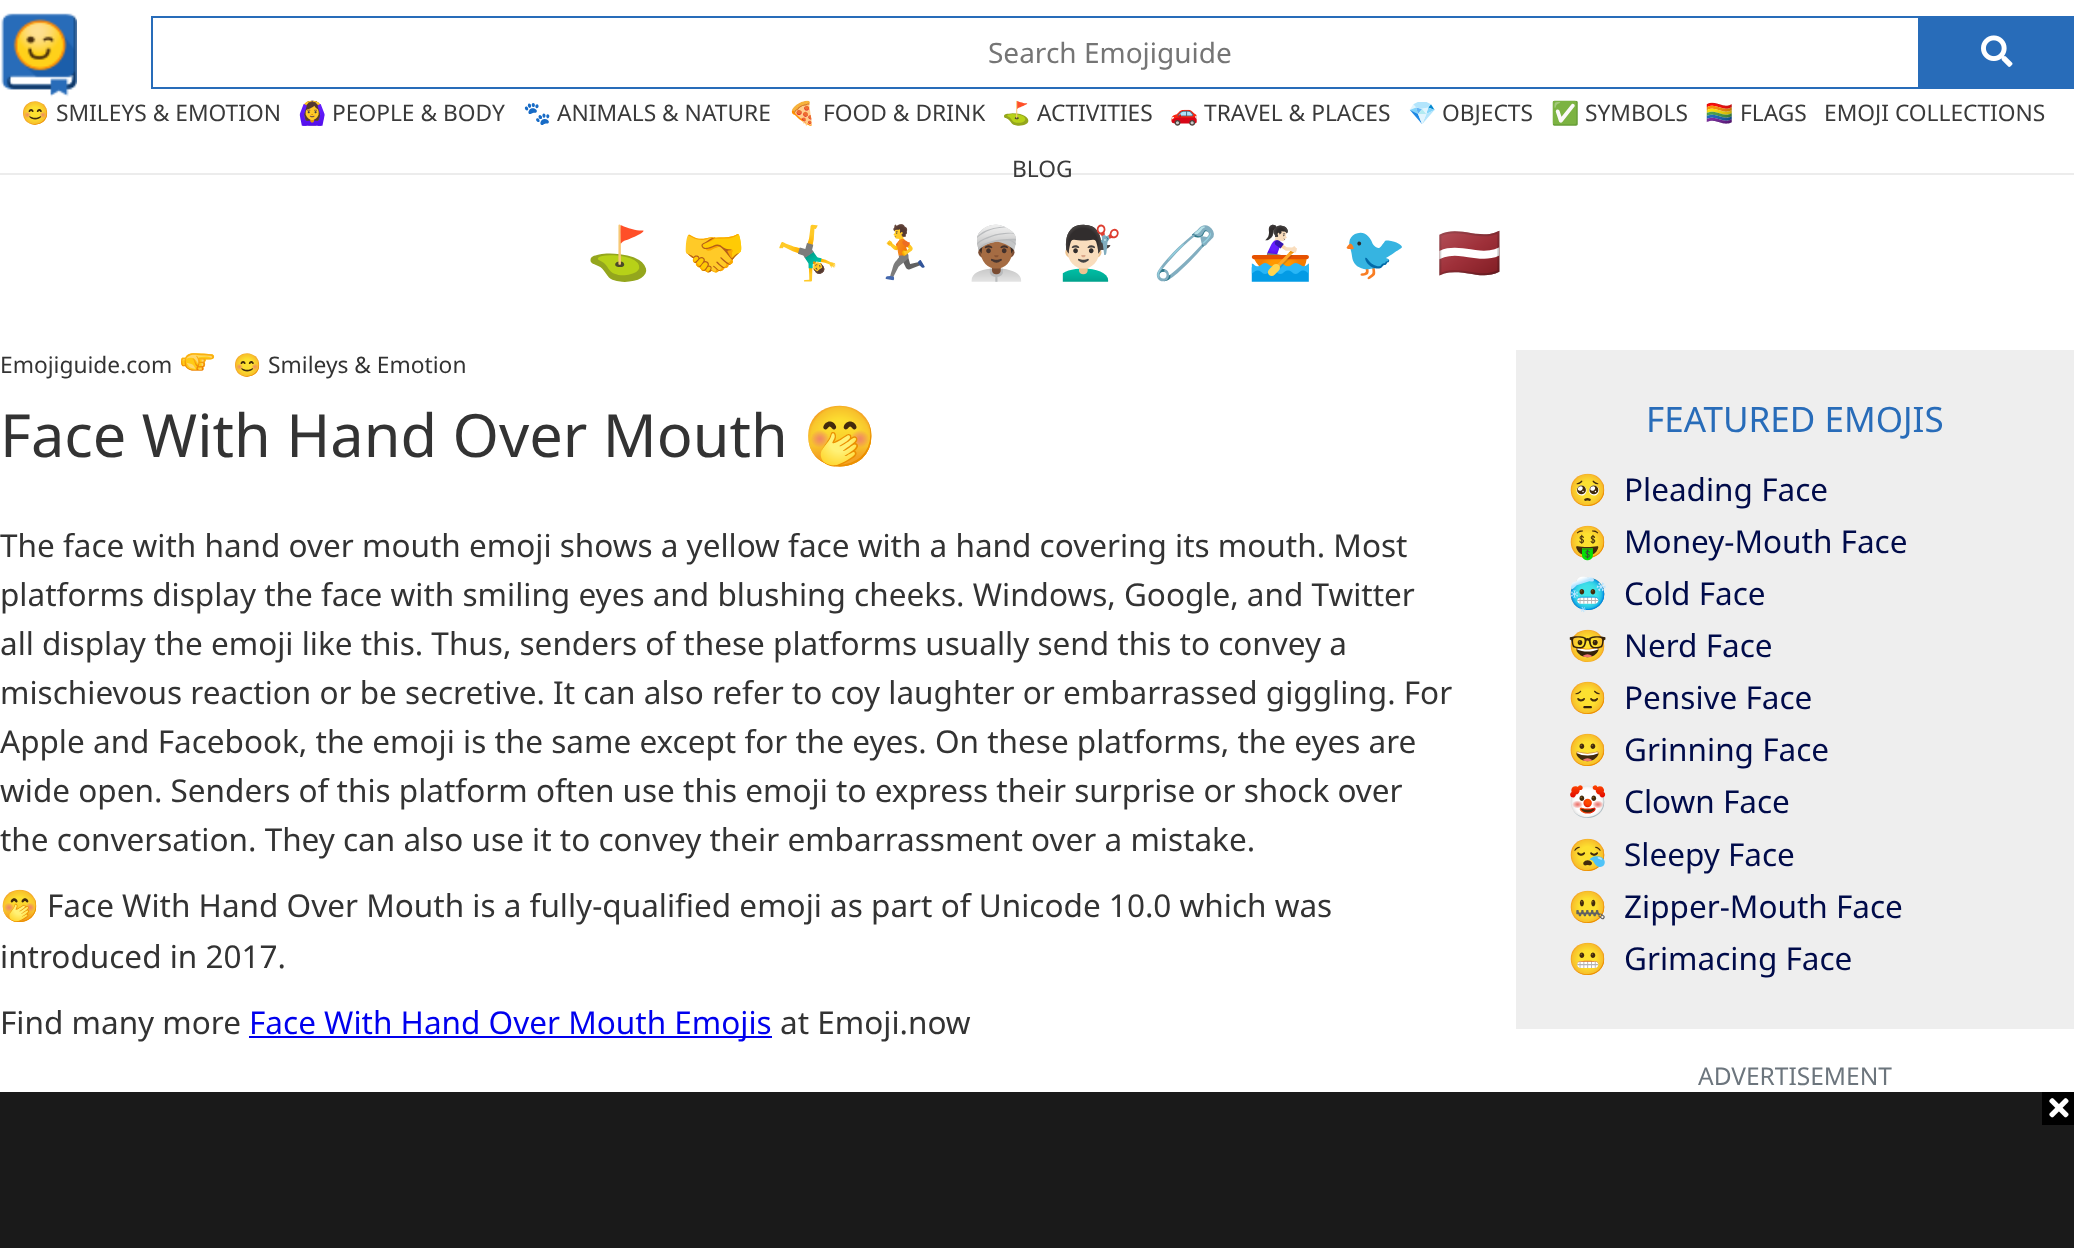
<?xml version="1.0" encoding="UTF-8"?>
<svg xmlns="http://www.w3.org/2000/svg" width="2074" height="1248">
    <rect width="100%" height="100%" fill="#FFFFFF"/>
    <rect x="0" y="173" width="2074" height="2" fill="#ECECEC"/>
    <image x="1" y="13" width="76" height="84" href="img_01.png"/>
    <rect x="152" y="17" width="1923" height="71" fill="none" stroke="#286CB9" stroke-width="2"/>
    <text x="988" y="63" font-family="Noto Sans" font-size="28" fill="#757575">Search Emojiguide</text>
    <rect x="1918" y="18" width="156" height="69" fill="#286CB9"/>
    <image x="1981" y="35" width="32" height="32" href="img_02.png"/>
    <text x="21" y="121" font-family="Noto Color Emoji" font-size="22.75" fill="#3A3A3A">😊</text>
    <text x="56" y="121" font-family="Noto Sans" font-size="22.75" fill="#3A3A3A">SMILEYS &amp; EMOTION</text>
    <text x="298" y="121" font-family="Noto Color Emoji" font-size="22.75" fill="#3A3A3A">🙆‍♀️</text>
    <text x="332" y="121" font-family="Noto Sans" font-size="22.75" fill="#3A3A3A">PEOPLE &amp; BODY</text>
    <text x="523" y="121" font-family="Noto Color Emoji" font-size="22.75" fill="#3A3A3A">🐾</text>
    <text x="557" y="121" font-family="Noto Sans" font-size="22.75" fill="#3A3A3A">ANIMALS &amp; NATURE</text>
    <text x="788" y="121" font-family="Noto Color Emoji" font-size="22.75" fill="#3A3A3A">🍕</text>
    <text x="823" y="121" font-family="Noto Sans" font-size="22.75" fill="#3A3A3A">FOOD &amp; DRINK</text>
    <text x="1002" y="121" font-family="Noto Color Emoji" font-size="22.75" fill="#3A3A3A">⛳</text>
    <text x="1037" y="121" font-family="Noto Sans" font-size="22.75" fill="#3A3A3A">ACTIVITIES</text>
    <text x="1170" y="121" font-family="Noto Color Emoji" font-size="22.75" fill="#3A3A3A">🚗</text>
    <text x="1204" y="121" font-family="Noto Sans" font-size="22.75" fill="#3A3A3A">TRAVEL &amp; PLACES</text>
    <text x="1408" y="121" font-family="Noto Color Emoji" font-size="22.75" fill="#3A3A3A">💎</text>
    <text x="1442" y="121" font-family="Noto Sans" font-size="22.75" fill="#3A3A3A">OBJECTS</text>
    <text x="1551" y="121" font-family="Noto Color Emoji" font-size="22.75" fill="#3A3A3A">✅</text>
    <text x="1585" y="121" font-family="Noto Sans" font-size="22.75" fill="#3A3A3A">SYMBOLS</text>
    <text x="1705" y="121" font-family="Noto Color Emoji" font-size="22.75" fill="#3A3A3A">🏳️‍🌈</text>
    <text x="1740" y="121" font-family="Noto Sans" font-size="22.75" fill="#3A3A3A">FLAGS</text>
    <text x="1824" y="121" font-family="Noto Sans" font-size="22.75" fill="#3A3A3A">EMOJI COLLECTIONS</text>
    <text x="1012" y="177" font-family="Noto Sans" font-size="22.75" fill="#3A3A3A">BLOG</text>
    <text x="586" y="271" font-family="Noto Color Emoji" font-size="52" fill="#0000EE">⛳</text>
    <text x="681" y="271" font-family="Noto Color Emoji" font-size="52" fill="#0000EE">🤝</text>
    <text x="775" y="271" font-family="Noto Color Emoji" font-size="52" fill="#0000EE">🤸‍♂️</text>
    <text x="870" y="271" font-family="Noto Color Emoji" font-size="52" fill="#0000EE">🏃</text>
    <text x="964" y="271" font-family="Noto Color Emoji" font-size="52" fill="#0000EE">👳🏾‍♂️</text>
    <text x="1059" y="271" font-family="Noto Color Emoji" font-size="52" fill="#0000EE">💇🏻‍♂️</text>
    <text x="1153" y="271" font-family="Noto Color Emoji" font-size="52" fill="#0000EE">🧷</text>
    <text x="1248" y="271" font-family="Noto Color Emoji" font-size="52" fill="#0000EE">🚣🏻‍♀️</text>
    <text x="1342" y="271" font-family="Noto Color Emoji" font-size="52" fill="#0000EE">🐦</text>
    <text x="1437" y="271" font-family="Noto Color Emoji" font-size="52" fill="#0000EE">🇱🇻</text>
    <text x="0" y="373" font-family="Noto Sans" font-size="22.75" fill="#333333">Emojiguide.com</text>
    <image x="181" y="353" width="34" height="18" href="img_03.png"/>
    <text x="233" y="373" font-family="Noto Color Emoji" font-size="22.75" fill="#333333">😊</text>
    <text x="268" y="373" font-family="Noto Sans" font-size="22.75" fill="#333333">Smileys &amp; Emotion</text>
    <text x="0" y="457" font-family="Noto Sans" font-size="59.5" fill="#333333">Face With Hand Over Mouth</text>
    <text x="803" y="457" font-family="Noto Color Emoji" font-size="59.5" fill="#333333">🤭</text>
    <text font-family="Noto Sans" font-size="31.5" fill="#333333">
        <tspan x="0" y="557">The face with hand over mouth emoji shows a yellow face with a hand covering its mouth. Most</tspan>
        <tspan x="0" y="606">platforms display the face with smiling eyes and blushing cheeks. Windows, Google, and Twitter</tspan>
        <tspan x="0" y="655">all display the emoji like this. Thus, senders of these platforms usually send this to convey a</tspan>
        <tspan x="0" y="704">mischievous reaction or be secretive. It can also refer to coy laughter or embarrassed giggling. For</tspan>
        <tspan x="0" y="753">Apple and Facebook, the emoji is the same except for the eyes. On these platforms, the eyes are</tspan>
        <tspan x="0" y="802">wide open. Senders of this platform often use this emoji to express their surprise or shock over</tspan>
        <tspan x="0" y="851">the conversation. They can also use it to convey their embarrassment over a mistake.</tspan>
    </text>
    <text x="0" y="917" font-family="Noto Color Emoji" font-size="31.5" fill="#333333">🤭</text>
    <text x="47" y="917" font-family="Noto Sans" font-size="31.5" fill="#333333">Face With Hand Over Mouth is a fully-qualified emoji as part of Unicode 10.0 which was</text>
    <text x="0" y="968" font-family="Noto Sans" font-size="31.5" fill="#333333">introduced in 2017.</text>
    <text x="0" y="1034" font-family="Noto Sans" font-size="31.5" fill="#333333">Find many more</text>
    <rect x="249" y="1036" width="523" height="2" fill="#0000EE"/>
    <text x="249" y="1034" font-family="Noto Sans" font-size="31.5" fill="#0000EE">Face With Hand Over Mouth Emojis</text>
    <text x="780" y="1034" font-family="Noto Sans" font-size="31.5" fill="#333333">at Emoji.now</text>
    <rect x="1516" y="350" width="558" height="679" fill="#EEEEEE"/>
    <text x="1646" y="432" font-family="Noto Sans" font-size="35" fill="#286CB9">FEATURED EMOJIS</text>
    <text x="1568" y="501" font-family="Noto Color Emoji" font-size="31.5" fill="#000B4A">🥺</text>
    <text x="1624" y="501" font-family="Noto Sans" font-size="31.5" fill="#000B4A">Pleading Face</text>
    <text x="1568" y="553" font-family="Noto Color Emoji" font-size="31.5" fill="#000B4A">🤑</text>
    <text x="1624" y="553" font-family="Noto Sans" font-size="31.5" fill="#000B4A">Money-Mouth Face</text>
    <text x="1568" y="605" font-family="Noto Color Emoji" font-size="31.5" fill="#000B4A">🥶</text>
    <text x="1624" y="605" font-family="Noto Sans" font-size="31.5" fill="#000B4A">Cold Face</text>
    <text x="1568" y="657" font-family="Noto Color Emoji" font-size="31.5" fill="#000B4A">🤓</text>
    <text x="1624" y="657" font-family="Noto Sans" font-size="31.5" fill="#000B4A">Nerd Face</text>
    <text x="1568" y="709" font-family="Noto Color Emoji" font-size="31.5" fill="#000B4A">😔</text>
    <text x="1624" y="709" font-family="Noto Sans" font-size="31.5" fill="#000B4A">Pensive Face</text>
    <text x="1568" y="761" font-family="Noto Color Emoji" font-size="31.5" fill="#000B4A">😀</text>
    <text x="1624" y="761" font-family="Noto Sans" font-size="31.5" fill="#000B4A">Grinning Face</text>
    <text x="1568" y="813" font-family="Noto Color Emoji" font-size="31.5" fill="#000B4A">🤡</text>
    <text x="1624" y="813" font-family="Noto Sans" font-size="31.5" fill="#000B4A">Clown Face</text>
    <text x="1568" y="866" font-family="Noto Color Emoji" font-size="31.5" fill="#000B4A">😪</text>
    <text x="1624" y="866" font-family="Noto Sans" font-size="31.5" fill="#000B4A">Sleepy Face</text>
    <text x="1568" y="918" font-family="Noto Color Emoji" font-size="31.5" fill="#000B4A">🤐</text>
    <text x="1624" y="918" font-family="Noto Sans" font-size="31.5" fill="#000B4A">Zipper-Mouth Face</text>
    <text x="1568" y="970" font-family="Noto Color Emoji" font-size="31.5" fill="#000B4A">😬</text>
    <text x="1624" y="970" font-family="Noto Sans" font-size="31.5" fill="#000B4A">Grimacing Face</text>
    <text x="1698" y="1085" font-family="Noto Sans" font-size="24.5" fill="#6C757D">ADVERTISEMENT</text>
    <rect x="0" y="1092" width="2074" height="156" fill="#1A1A1A"/>
    <rect x="2042" y="1092" width="32" height="33" fill="#000000"/>
    <image x="2049" y="1098" width="20" height="20" href="img_04.png"/>
</svg>
